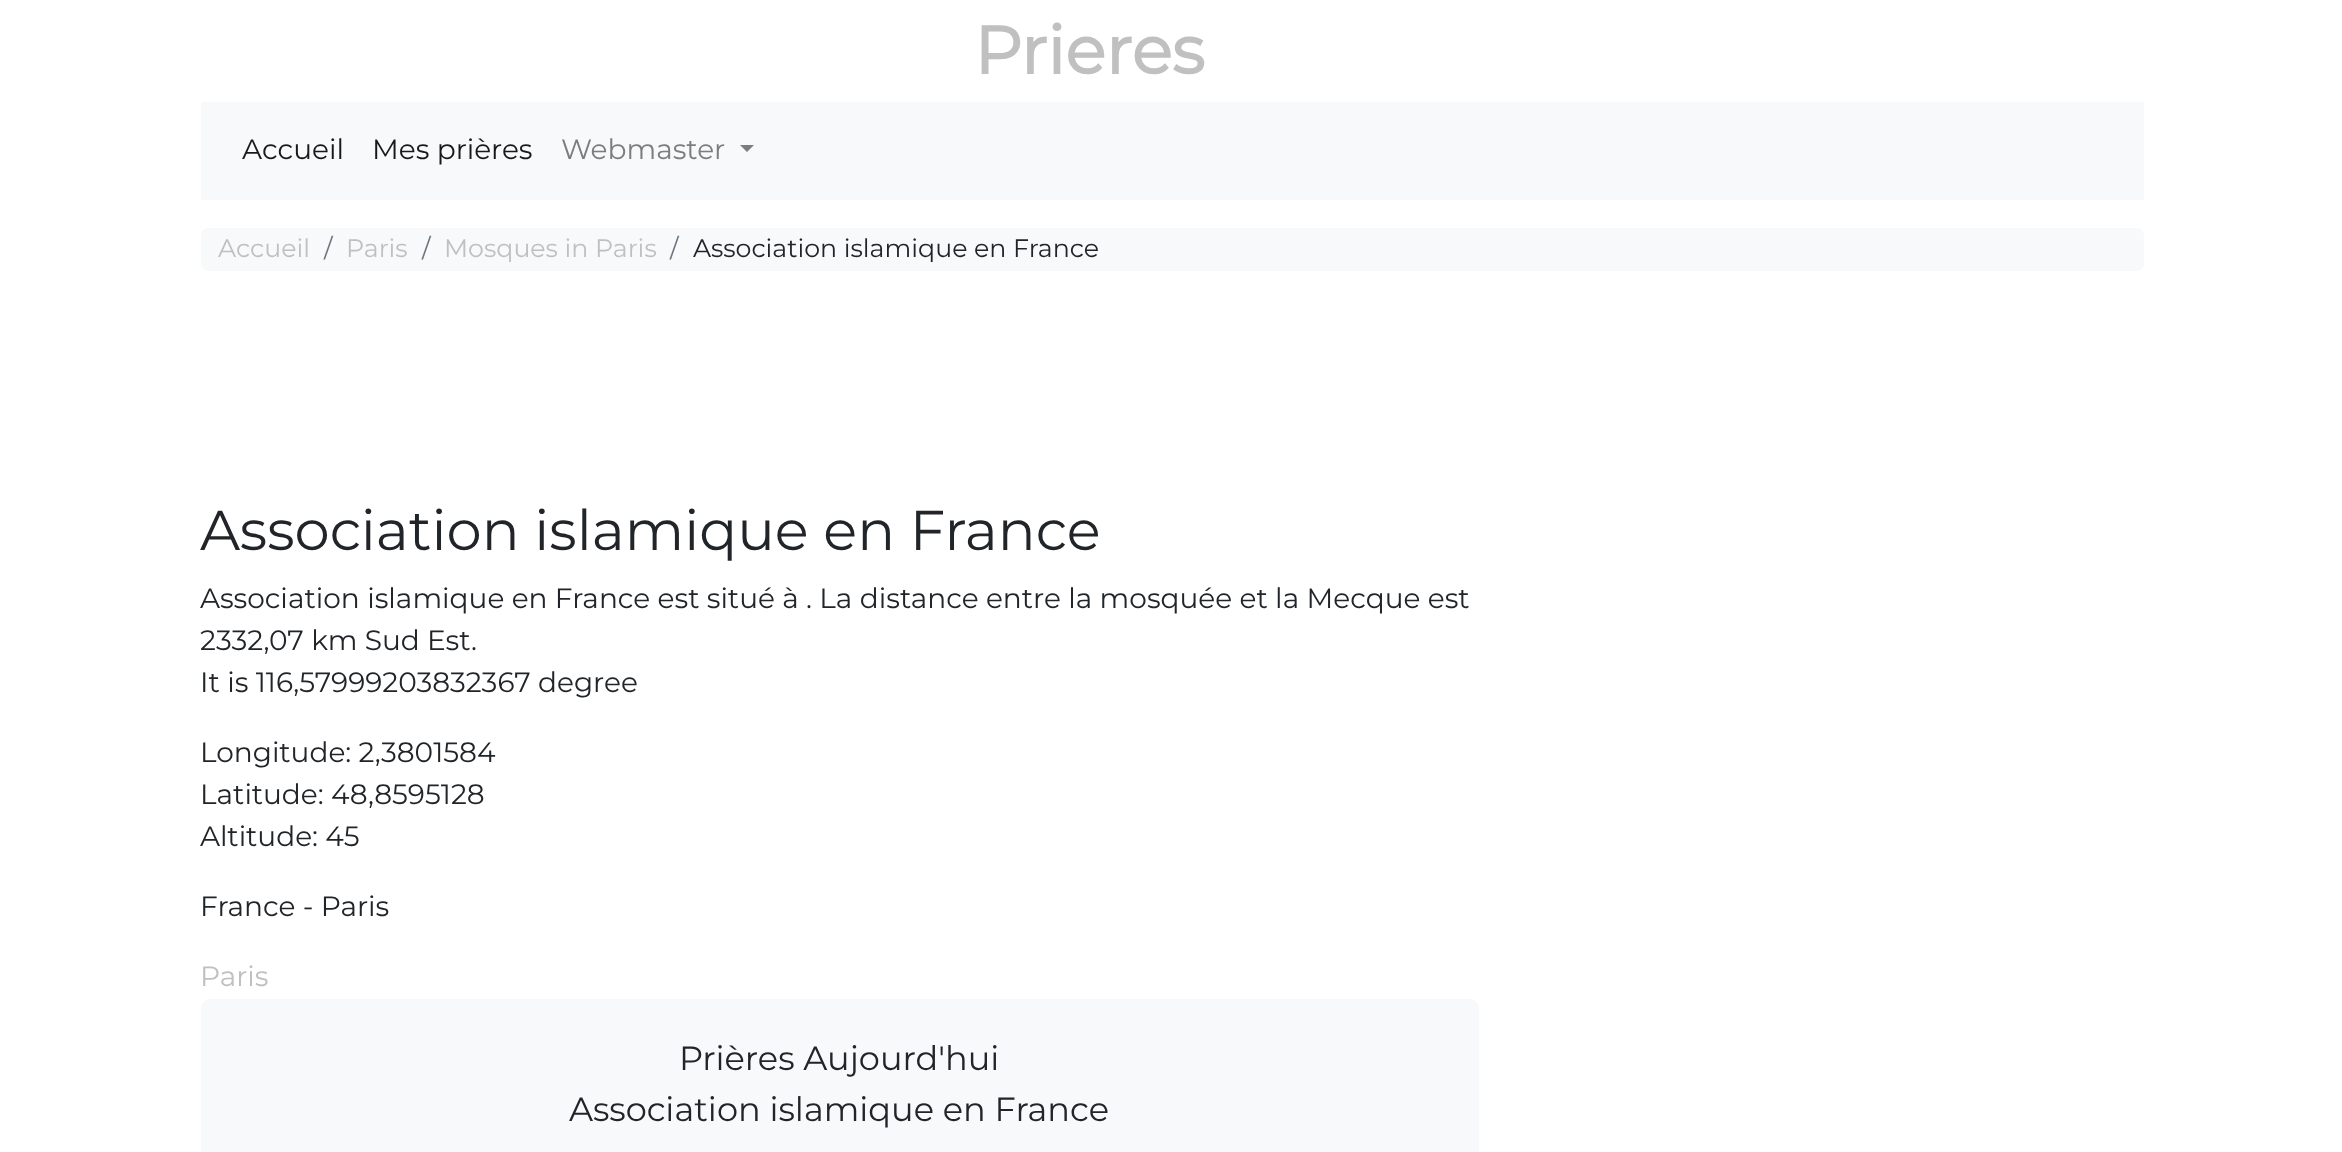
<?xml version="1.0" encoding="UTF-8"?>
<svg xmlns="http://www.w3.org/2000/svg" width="2342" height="1152">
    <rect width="100%" height="100%" fill="#FFFFFF"/>
    <text x="974" y="74" font-family="Montserrat" font-size="67" font-weight="700" fill="#C0C0C0">Prieres</text>
    <rect x="201" y="102" width="1943" height="98" fill="#F8F9FA"/>
    <text x="242" y="159" font-family="Montserrat" font-size="28" font-weight="100" fill="#191919">Accueil</text>
    <text x="372" y="159" font-family="Montserrat" font-size="28" font-weight="100" fill="#191919">Mes prières</text>
    <text x="561" y="159" font-family="Montserrat" font-size="28" font-weight="100" fill="#7C7D7D">Webmaster</text>
    <path d="M 740 145 H 754 L 747 152 Z" fill="#7C7D7D"/>
    <rect x="201" y="228" width="1943" height="43" rx="7" fill="#F8F9FA"/>
    <text x="218" y="257" font-family="Montserrat" font-size="25.25" font-weight="100" fill="#C0C0C0">Accueil</text>
    <text x="324" y="257" font-family="Montserrat" font-size="25.25" font-weight="100" fill="#6C757D">/</text>
    <text x="346" y="257" font-family="Montserrat" font-size="25.25" font-weight="100" fill="#C0C0C0">Paris</text>
    <text x="422" y="257" font-family="Montserrat" font-size="25.25" font-weight="100" fill="#6C757D">/</text>
    <text x="444" y="257" font-family="Montserrat" font-size="25.25" font-weight="100" fill="#C0C0C0">Mosques in Paris</text>
    <text x="670" y="257" font-family="Montserrat" font-size="25.25" font-weight="100" fill="#6C757D">/</text>
    <text x="693" y="257" font-family="Montserrat" font-size="25.25" font-weight="100" fill="#212529">Association islamique en France</text>
    <text x="200" y="550" font-family="Montserrat" font-size="56" font-weight="100" fill="#212529">Association islamique en France</text>
    <text font-family="Montserrat" font-size="28" font-weight="100" fill="#212529">
        <tspan x="200" y="608">Association islamique en France est situé à . La distance entre la mosquée et la Mecque est</tspan>
        <tspan x="200" y="650">2332,07 km Sud Est.</tspan>
        <tspan x="200" y="692">It is 116,57999203832367 degree</tspan>
    </text>
    <text font-family="Montserrat" font-size="28" font-weight="100" fill="#212529">
        <tspan x="200" y="762">Longitude: 2,3801584</tspan>
        <tspan x="200" y="804">Latitude: 48,8595128</tspan>
        <tspan x="200" y="846">Altitude: 45</tspan>
    </text>
    <text x="200" y="916" font-family="Montserrat" font-size="28" font-weight="100" fill="#212529">France - Paris</text>
    <text x="200" y="986" font-family="Montserrat" font-size="28" font-weight="100" fill="#C0C0C0">Paris</text>
    <rect x="201" y="999" width="1278" height="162" rx="9" fill="#F8F9FA"/>
    <text x="679" y="1070" font-family="Montserrat" font-size="33.6" font-weight="100" fill="#212529">Prières Aujourd'hui</text>
    <text x="569" y="1121" font-family="Montserrat" font-size="33.6" font-weight="100" fill="#212529">Association islamique en France</text>
</svg>
